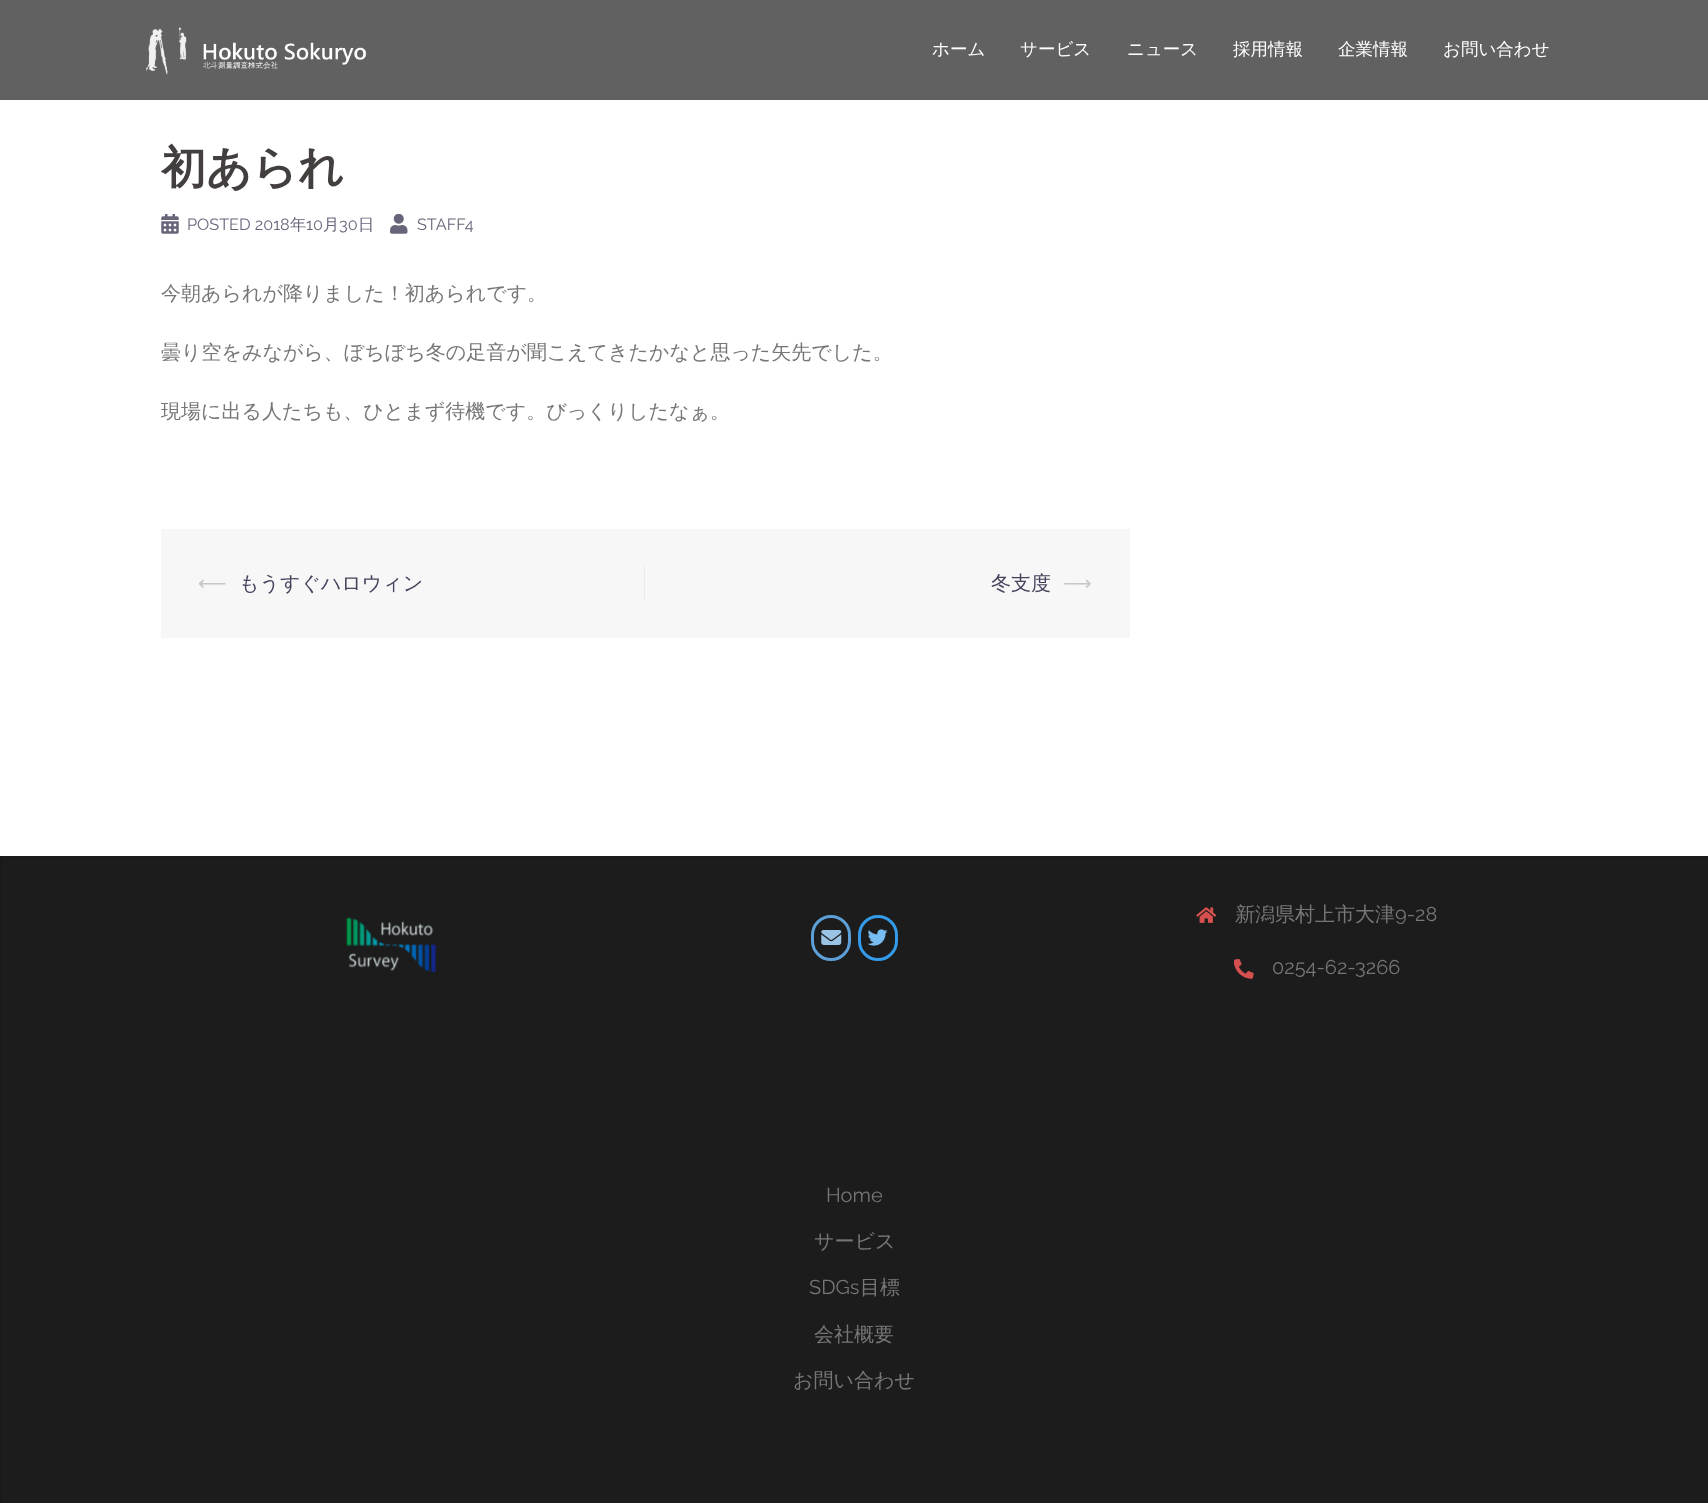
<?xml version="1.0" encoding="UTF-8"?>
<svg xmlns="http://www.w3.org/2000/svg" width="1708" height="1503">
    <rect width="100%" height="100%" fill="#FFFFFF"/>
    <rect x="0" y="0" width="1708" height="100" fill="#616161"/>
    <image x="145" y="27" width="222" height="48" href="img_01.png"/>
    <text x="932" y="55" font-family="WenQuanYi Zen Hei" font-size="17.5" font-weight="500" fill="#FFFFFF">ホーム</text>
    <text x="1020" y="55" font-family="WenQuanYi Zen Hei" font-size="17.5" font-weight="500" fill="#FFFFFF">サービス</text>
    <text x="1127" y="55" font-family="WenQuanYi Zen Hei" font-size="17.5" font-weight="500" fill="#FFFFFF">ニュース</text>
    <text x="1233" y="55" font-family="WenQuanYi Zen Hei" font-size="17.5" font-weight="500" fill="#FFFFFF">採用情報</text>
    <text x="1338" y="55" font-family="WenQuanYi Zen Hei" font-size="17.5" font-weight="500" fill="#FFFFFF">企業情報</text>
    <text x="1443" y="55" font-family="WenQuanYi Zen Hei" font-size="17.5" font-weight="500" fill="#FFFFFF">お問い合わせ</text>
    <text x="161" y="183" font-family="WenQuanYi Zen Hei" font-size="45" font-weight="700" fill="#443F3F">初あられ</text>
    <image x="161" y="214" width="18" height="20" href="img_02.png"/>
    <text x="187" y="230" font-family="Raleway" font-size="16.25" fill="#68647A">POSTED 2018</text>
    <text x="290" y="230" font-family="WenQuanYi Zen Hei" font-size="16.25" font-weight="500" fill="#68647A">年</text>
    <text x="306" y="230" font-family="Raleway" font-size="16.25" fill="#68647A">10</text>
    <text x="323" y="230" font-family="WenQuanYi Zen Hei" font-size="16.25" font-weight="500" fill="#68647A">月</text>
    <text x="339" y="230" font-family="Raleway" font-size="16.25" fill="#68647A">30</text>
    <text x="358" y="230" font-family="WenQuanYi Zen Hei" font-size="16.25" font-weight="500" fill="#68647A">日</text>
    <image x="390" y="214" width="18" height="20" href="img_03.png"/>
    <text x="417" y="230" font-family="Raleway" font-size="16.25" fill="#68647A">STAFF4</text>
    <text x="161" y="300" font-family="WenQuanYi Zen Hei" font-size="20" font-weight="500" fill="#767676">今朝あられが降りました！初あられです。</text>
    <text x="161" y="359" font-family="WenQuanYi Zen Hei" font-size="20" font-weight="500" fill="#767676">曇り空をみながら、ぼちぼち冬の足音が聞こえてきたかなと思った矢先でした。</text>
    <text x="161" y="418" font-family="WenQuanYi Zen Hei" font-size="20" font-weight="500" fill="#767676">現場に出る人たちも、ひとまず待機です。びっくりしたなぁ。</text>
    <rect x="161" y="529" width="969" height="109" fill="#F7F7F7"/>
    <rect x="644" y="566" width="1" height="34" fill="#EBEBEB"/>
    <text x="198" y="590" font-family="DejaVu Sans" font-size="20" fill="#C7C7C7">⟵</text>
    <text x="239" y="590" font-family="WenQuanYi Zen Hei" font-size="20" font-weight="500" fill="#47425D">もうすぐハロウィン</text>
    <text x="991" y="590" font-family="WenQuanYi Zen Hei" font-size="20" font-weight="500" fill="#47425D">冬支度</text>
    <text x="1063" y="590" font-family="DejaVu Sans" font-size="20" fill="#C7C7C7">⟶</text>
    <rect x="0.5" y="856.5" width="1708" height="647" fill="#1C1C1C" stroke="#191919"/>
    <image x="346" y="917" width="91" height="56" href="img_04.png"/>
    <rect x="812.5" y="916.5" width="37" height="43" rx="18.5" fill="none" stroke="#5CA0D7" stroke-width="3"/>
    <image x="821" y="930" width="21" height="15" href="img_05.png"/>
    <rect x="859.5" y="916.5" width="37" height="43" rx="18.5" fill="none" stroke="#339BEA" stroke-width="3"/>
    <image x="867" y="929" width="21" height="17" href="img_06.png"/>
    <image x="1196" y="907" width="20" height="16" href="img_07.png"/>
    <text x="1235" y="921" font-family="WenQuanYi Zen Hei" font-size="20" font-weight="500" fill="#767676">新潟県村上市大津</text>
    <text x="1395" y="921" font-family="Raleway" font-size="20" fill="#767676">9-28</text>
    <image x="1234" y="959" width="20" height="20" href="img_08.png"/>
    <text x="1272" y="974" font-family="Raleway" font-size="20" fill="#767676">0254-62-3266</text>
    <text x="826" y="1202" font-family="Raleway" font-size="20" fill="#767676">Home</text>
    <text x="814" y="1248" font-family="WenQuanYi Zen Hei" font-size="20" font-weight="500" fill="#767676">サービス</text>
    <text x="809" y="1294" font-family="Raleway" font-size="20" fill="#767676">SDGs</text>
    <text x="860" y="1294" font-family="WenQuanYi Zen Hei" font-size="20" font-weight="500" fill="#767676">目標</text>
    <text x="814" y="1341" font-family="WenQuanYi Zen Hei" font-size="20" font-weight="500" fill="#767676">会社概要</text>
    <text x="793" y="1387" font-family="WenQuanYi Zen Hei" font-size="20" font-weight="500" fill="#767676">お問い合わせ</text>
</svg>
